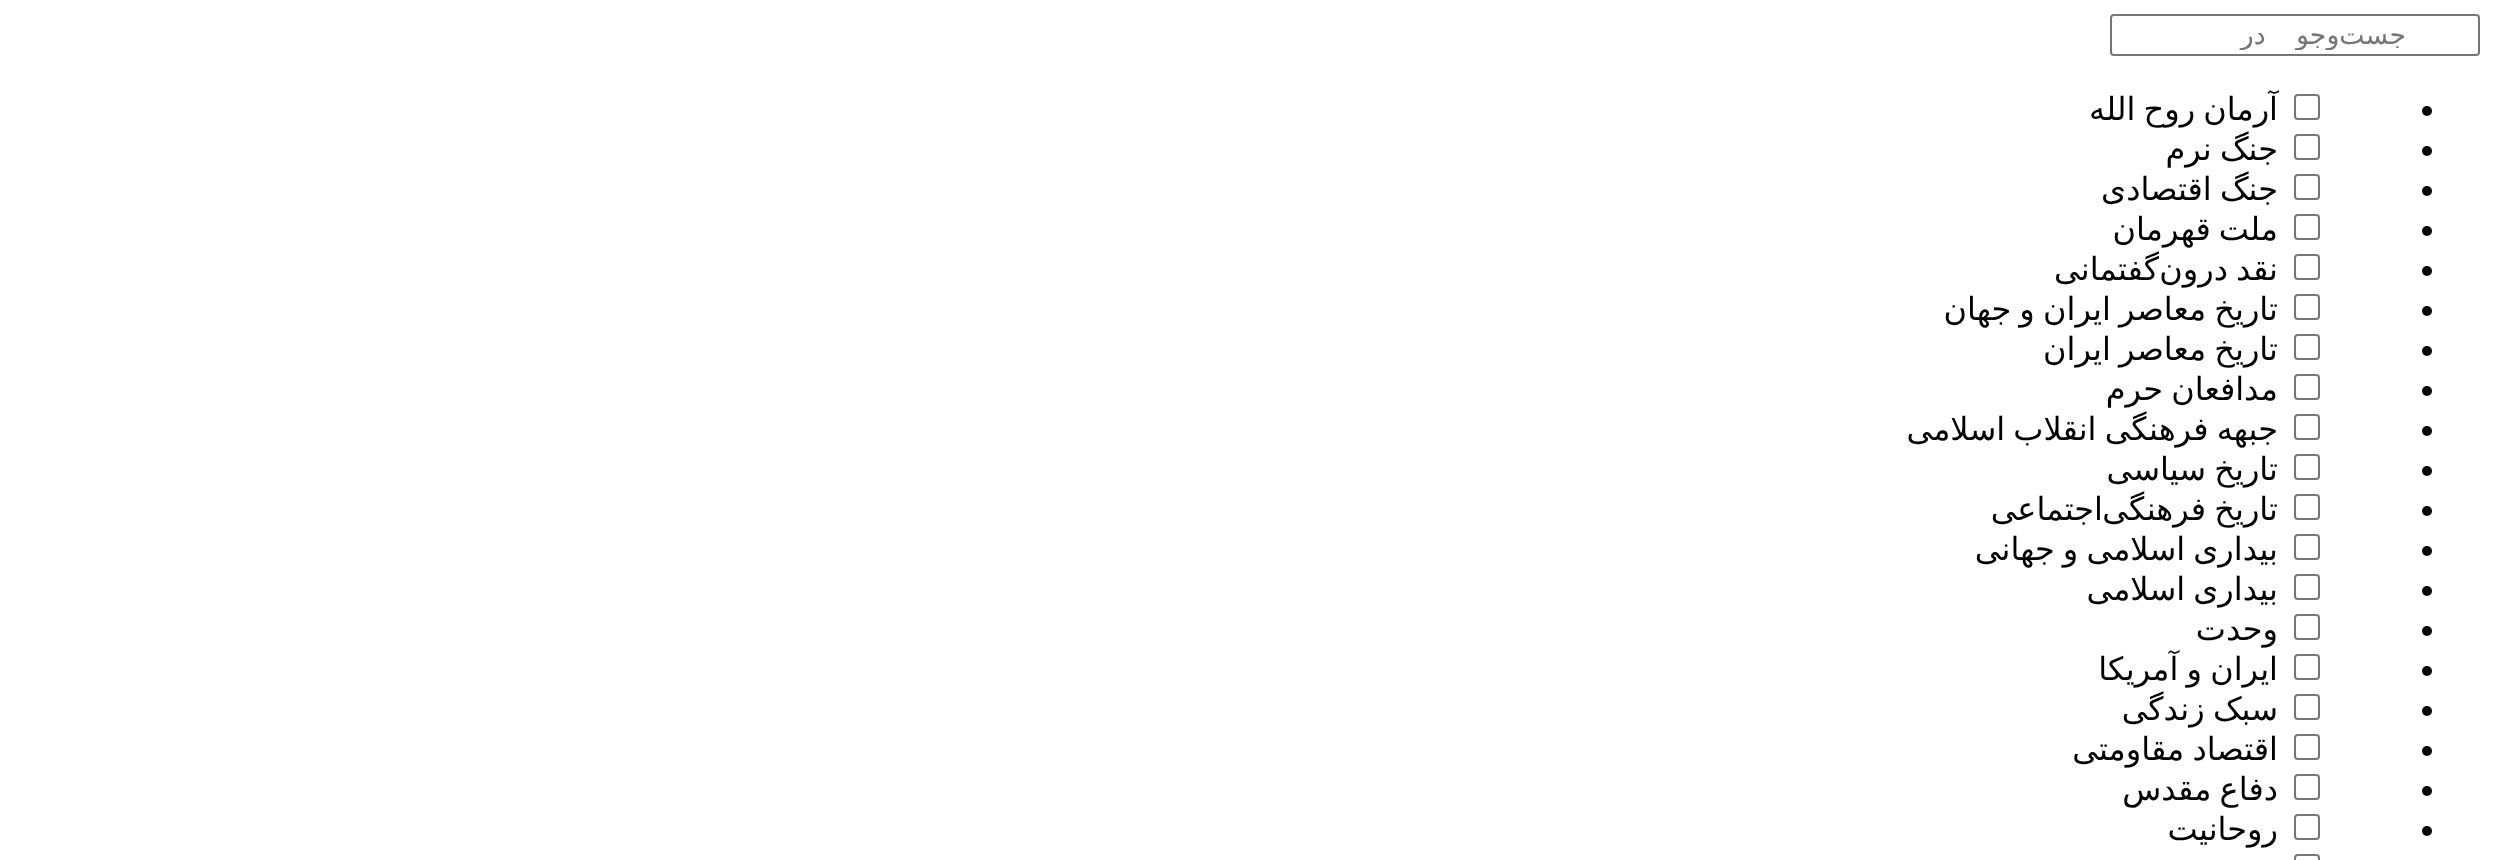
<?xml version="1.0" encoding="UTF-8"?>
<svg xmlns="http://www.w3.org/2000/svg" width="2495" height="860">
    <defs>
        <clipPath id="clip1"><rect x="2118" y="20" width="354" height="30"/></clipPath>
    </defs>
    <rect width="100%" height="100%" fill="#FFFFFF"/>
    <rect x="2111" y="15" width="368" height="40" rx="3" fill="none" stroke="#767676" stroke-width="2"/>
    <g clip-path="url(#clip1)">
        <text x="2406" y="44" word-spacing="22" font-family="DejaVu Sans" font-size="26.75" direction="rtl" fill="#757575">جست‌وجو در</text>
    </g>
    <circle cx="2427" cy="111" r="5" fill="#000000"/>
    <rect x="2295" y="95" width="24" height="24" rx="3" fill="none" stroke="#767676" stroke-width="2"/>
    <text x="2278" y="120" word-spacing="-2" font-family="DejaVu Sans" font-size="32" direction="rtl" fill="#000000">آرمان روح الله</text>
    <circle cx="2427" cy="151" r="5" fill="#000000"/>
    <rect x="2295" y="135" width="24" height="24" rx="3" fill="none" stroke="#767676" stroke-width="2"/>
    <text x="2278" y="160" word-spacing="-2" font-family="DejaVu Sans" font-size="32" direction="rtl" fill="#000000">جنگ نرم</text>
    <circle cx="2427" cy="191" r="5" fill="#000000"/>
    <rect x="2295" y="175" width="24" height="24" rx="3" fill="none" stroke="#767676" stroke-width="2"/>
    <text x="2278" y="200" word-spacing="-2" font-family="DejaVu Sans" font-size="32" direction="rtl" fill="#000000">جنگ اقتصادی</text>
    <circle cx="2427" cy="231" r="5" fill="#000000"/>
    <rect x="2295" y="215" width="24" height="24" rx="3" fill="none" stroke="#767676" stroke-width="2"/>
    <text x="2278" y="240" word-spacing="-2" font-family="DejaVu Sans" font-size="32" direction="rtl" fill="#000000">ملت قهرمان</text>
    <circle cx="2427" cy="271" r="5" fill="#000000"/>
    <rect x="2295" y="255" width="24" height="24" rx="3" fill="none" stroke="#767676" stroke-width="2"/>
    <text x="2278" y="280" word-spacing="-2" font-family="DejaVu Sans" font-size="32" direction="rtl" fill="#000000">نقد درون</text>
    <text x="2159" y="280" font-family="DejaVu Sans" font-size="32" direction="rtl" fill="#000000">گفتمانی</text>
    <circle cx="2427" cy="311" r="5" fill="#000000"/>
    <rect x="2295" y="295" width="24" height="24" rx="3" fill="none" stroke="#767676" stroke-width="2"/>
    <text x="2278" y="320" word-spacing="-2" font-family="DejaVu Sans" font-size="32" direction="rtl" fill="#000000">تاریخ معاصر ایران و جهان</text>
    <circle cx="2427" cy="351" r="5" fill="#000000"/>
    <rect x="2295" y="335" width="24" height="24" rx="3" fill="none" stroke="#767676" stroke-width="2"/>
    <text x="2278" y="360" word-spacing="-2" font-family="DejaVu Sans" font-size="32" direction="rtl" fill="#000000">تاریخ معاصر ایران</text>
    <circle cx="2427" cy="391" r="5" fill="#000000"/>
    <rect x="2295" y="375" width="24" height="24" rx="3" fill="none" stroke="#767676" stroke-width="2"/>
    <text x="2278" y="400" word-spacing="-2" font-family="DejaVu Sans" font-size="32" direction="rtl" fill="#000000">مدافعان حرم</text>
    <circle cx="2427" cy="431" r="5" fill="#000000"/>
    <rect x="2295" y="415" width="24" height="24" rx="3" fill="none" stroke="#767676" stroke-width="2"/>
    <text x="2278" y="440" word-spacing="-2" font-family="DejaVu Sans" font-size="32" direction="rtl" fill="#000000">جبهه فرهنگی انقلاب اسلامی</text>
    <circle cx="2427" cy="471" r="5" fill="#000000"/>
    <rect x="2295" y="455" width="24" height="24" rx="3" fill="none" stroke="#767676" stroke-width="2"/>
    <text x="2278" y="480" word-spacing="-2" font-family="DejaVu Sans" font-size="32" direction="rtl" fill="#000000">تاریخ سیاسی</text>
    <circle cx="2427" cy="511" r="5" fill="#000000"/>
    <rect x="2295" y="495" width="24" height="24" rx="3" fill="none" stroke="#767676" stroke-width="2"/>
    <text x="2278" y="520" word-spacing="-2" font-family="DejaVu Sans" font-size="32" direction="rtl" fill="#000000">تاریخ فرهنگی</text>
    <text x="2103" y="520" font-family="DejaVu Sans" font-size="32" direction="rtl" fill="#000000">اجتماعی</text>
    <circle cx="2427" cy="551" r="5" fill="#000000"/>
    <rect x="2295" y="535" width="24" height="24" rx="3" fill="none" stroke="#767676" stroke-width="2"/>
    <text x="2278" y="560" word-spacing="-2" font-family="DejaVu Sans" font-size="32" direction="rtl" fill="#000000">بیداری اسلامی و جهانی</text>
    <circle cx="2427" cy="591" r="5" fill="#000000"/>
    <rect x="2295" y="575" width="24" height="24" rx="3" fill="none" stroke="#767676" stroke-width="2"/>
    <text x="2278" y="600" word-spacing="-2" font-family="DejaVu Sans" font-size="32" direction="rtl" fill="#000000">بیداری اسلامی</text>
    <circle cx="2427" cy="631" r="5" fill="#000000"/>
    <rect x="2295" y="615" width="24" height="24" rx="3" fill="none" stroke="#767676" stroke-width="2"/>
    <text x="2278" y="640" font-family="DejaVu Sans" font-size="32" direction="rtl" fill="#000000">وحدت</text>
    <circle cx="2427" cy="671" r="5" fill="#000000"/>
    <rect x="2295" y="655" width="24" height="24" rx="3" fill="none" stroke="#767676" stroke-width="2"/>
    <text x="2278" y="680" word-spacing="-2" font-family="DejaVu Sans" font-size="32" direction="rtl" fill="#000000">ایران و آمریکا</text>
    <circle cx="2427" cy="711" r="5" fill="#000000"/>
    <rect x="2295" y="695" width="24" height="24" rx="3" fill="none" stroke="#767676" stroke-width="2"/>
    <text x="2278" y="720" word-spacing="-2" font-family="DejaVu Sans" font-size="32" direction="rtl" fill="#000000">سبک زندگی</text>
    <circle cx="2427" cy="751" r="5" fill="#000000"/>
    <rect x="2295" y="735" width="24" height="24" rx="3" fill="none" stroke="#767676" stroke-width="2"/>
    <text x="2278" y="760" word-spacing="-2" font-family="DejaVu Sans" font-size="32" direction="rtl" fill="#000000">اقتصاد مقاومتی</text>
    <circle cx="2427" cy="791" r="5" fill="#000000"/>
    <rect x="2295" y="775" width="24" height="24" rx="3" fill="none" stroke="#767676" stroke-width="2"/>
    <text x="2278" y="800" word-spacing="-2" font-family="DejaVu Sans" font-size="32" direction="rtl" fill="#000000">دفاع مقدس</text>
    <circle cx="2427" cy="831" r="5" fill="#000000"/>
    <rect x="2295" y="815" width="24" height="24" rx="3" fill="none" stroke="#767676" stroke-width="2"/>
    <text x="2278" y="840" font-family="DejaVu Sans" font-size="32" direction="rtl" fill="#000000">روحانیت</text>
    <rect x="2295" y="855" width="24" height="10" rx="3" fill="none" stroke="#767676" stroke-width="2"/>
</svg>
